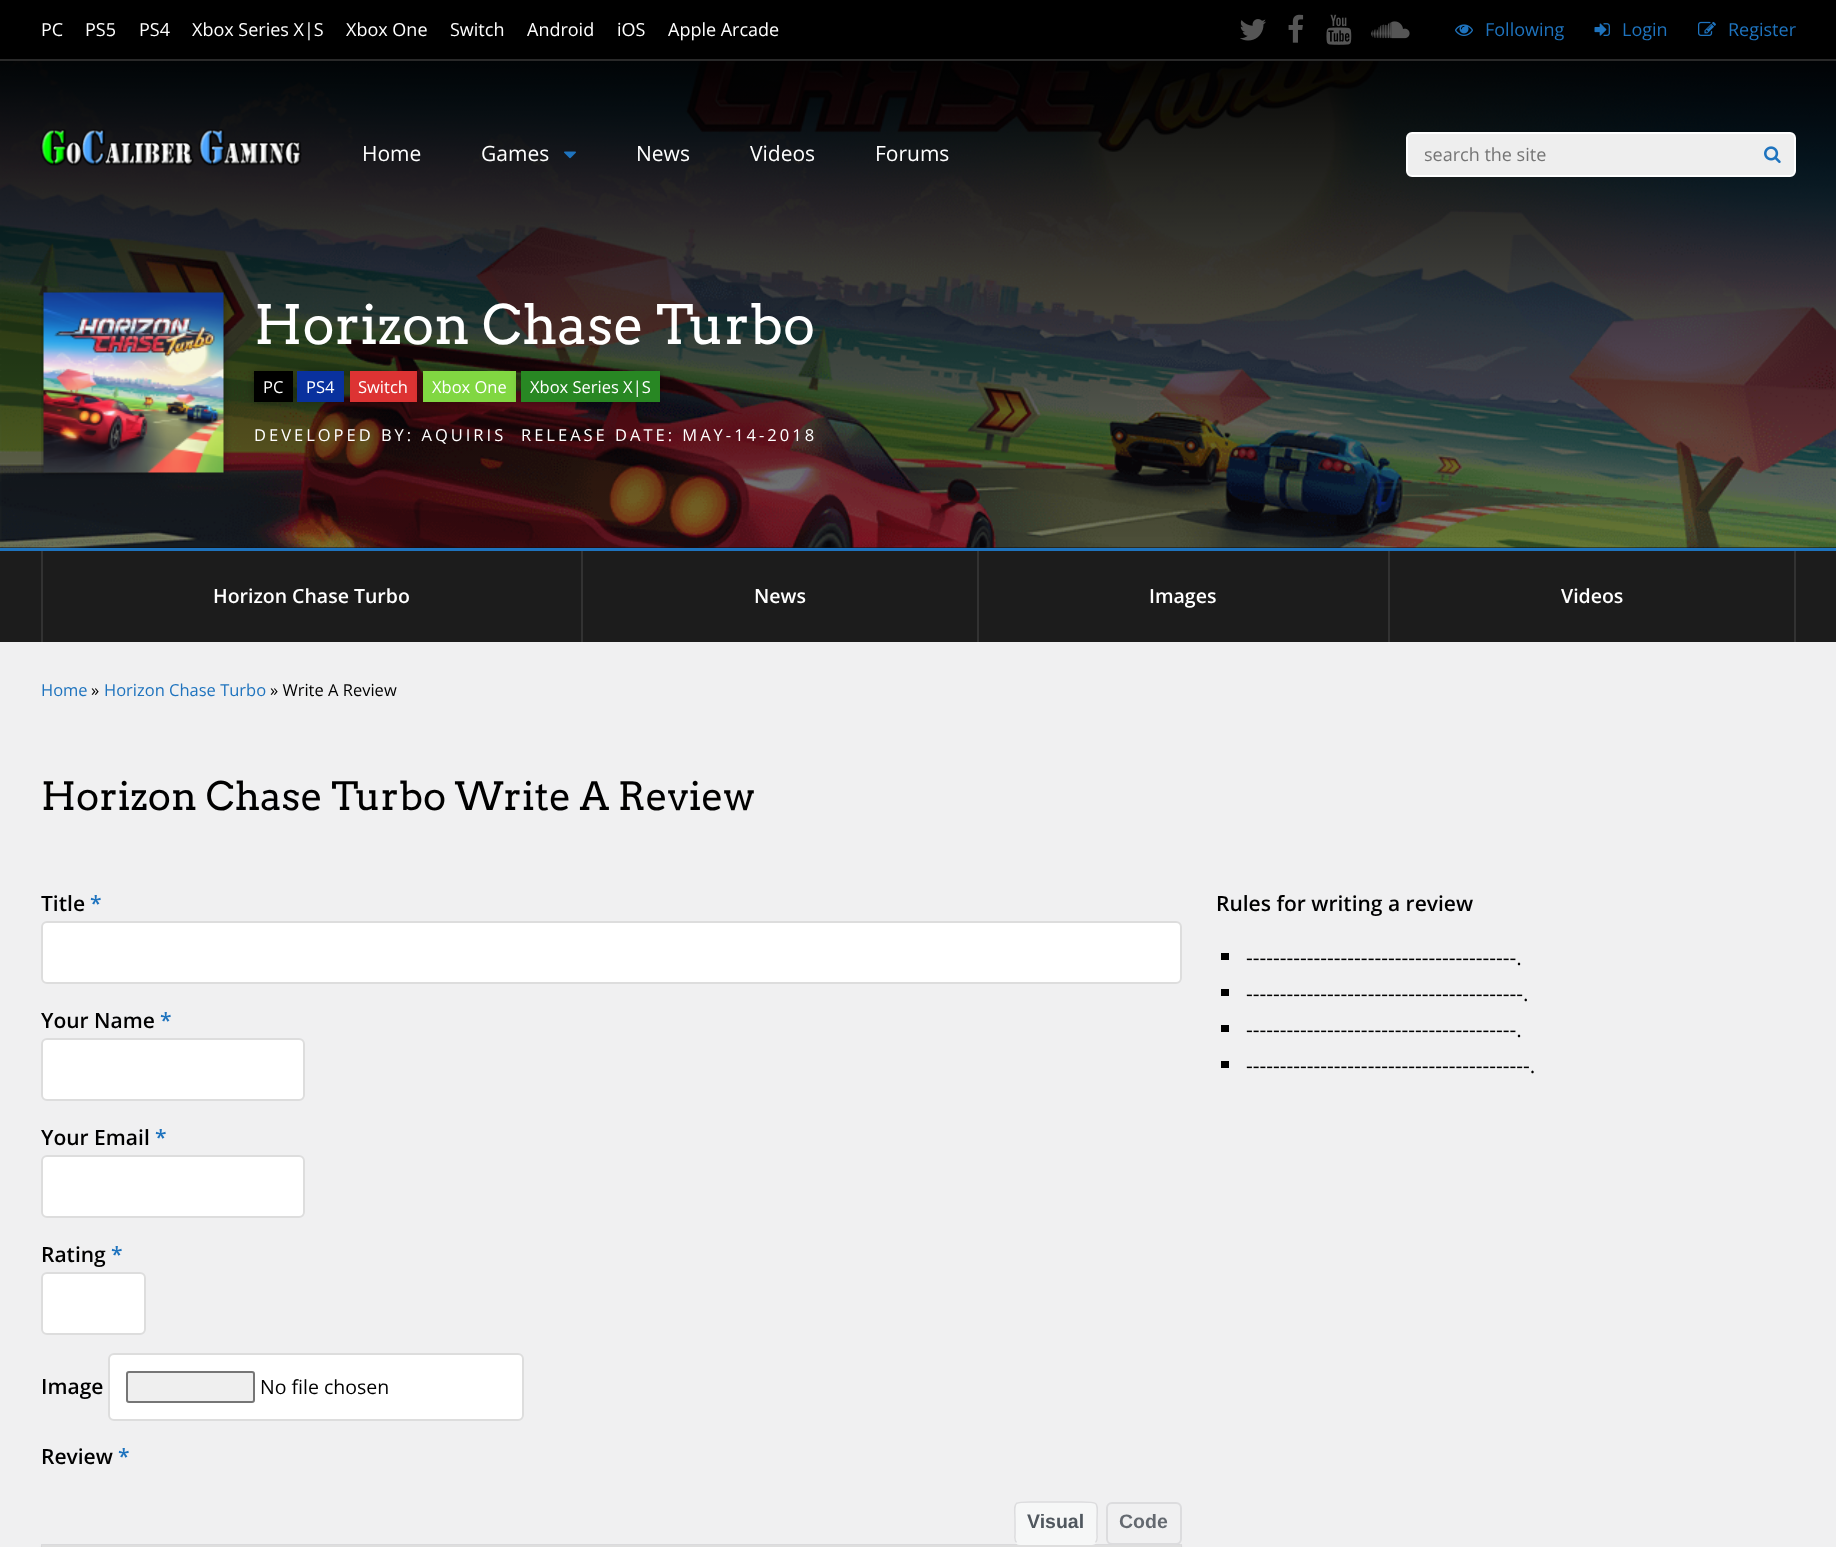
<?xml version="1.0" encoding="UTF-8"?>
<svg xmlns="http://www.w3.org/2000/svg" width="1836" height="1547">
    <defs>
        <linearGradient id="g1" gradientUnits="userSpaceOnUse" x1="918" y1="60" x2="918" y2="548"><stop offset="0" stop-color="#000000" stop-opacity="0.95"/><stop offset="1" stop-color="#000000" stop-opacity="0"/></linearGradient>
        <clipPath id="clip1"><rect x="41" y="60" width="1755" height="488"/></clipPath>
        <filter id="blur1" x="-50%" y="-200%" width="200%" height="500%"><feGaussianBlur stdDeviation="4"/></filter>
        <filter id="blur2" x="-50%" y="-200%" width="200%" height="500%"><feGaussianBlur stdDeviation="1.5"/></filter>
    </defs>
    <rect width="100%" height="100%" fill="#F0F0F1"/>
    <rect x="0" y="0" width="1836" height="59" fill="#000000"/>
    <rect x="0" y="59" width="1836" height="2" fill="#292929"/>
    <text x="41" y="36" font-family="Open Sans" font-size="18" fill="#FFFFFF">PC</text>
    <text x="85" y="36" font-family="Open Sans" font-size="18" fill="#FFFFFF">PS5</text>
    <text x="139" y="36" font-family="Open Sans" font-size="18" fill="#FFFFFF">PS4</text>
    <text x="192" y="36" font-family="Open Sans" font-size="18" fill="#FFFFFF">Xbox Series X|S</text>
    <text x="346" y="36" font-family="Open Sans" font-size="18" fill="#FFFFFF">Xbox One</text>
    <text x="450" y="36" font-family="Open Sans" font-size="18" fill="#FFFFFF">Switch</text>
    <text x="527" y="36" font-family="Open Sans" font-size="18" fill="#FFFFFF">Android</text>
    <text x="617" y="36" font-family="Open Sans" font-size="18" fill="#FFFFFF">iOS</text>
    <text x="668" y="36" font-family="Open Sans" font-size="18" fill="#FFFFFF">Apple Arcade</text>
    <image x="1240" y="19" width="26" height="22" href="img_01.png"/>
    <image x="1288" y="14" width="16" height="29" href="img_02.png"/>
    <image x="1326" y="14" width="26" height="31" href="img_03.png"/>
    <image x="1371" y="21" width="39" height="18" href="img_04.png"/>
    <image x="1455" y="24" width="18" height="12" href="img_05.png"/>
    <text x="1485" y="36" font-family="Open Sans" font-size="18" fill="#1E73BE">Following</text>
    <image x="1594" y="23" width="16" height="13" href="img_06.png"/>
    <text x="1622" y="36" font-family="Open Sans" font-size="18" fill="#1E73BE">Login</text>
    <image x="1698" y="21" width="18" height="15" href="img_07.png"/>
    <text x="1728" y="36" font-family="Open Sans" font-size="18" fill="#1E73BE">Register</text>
    <rect x="0" y="547" width="1836" height="1" fill="#0E0E0E"/>
    <image x="0" y="61" width="1836" height="487" href="img_11.png"/>
    <rect x="0" y="61" width="1836" height="476" fill="url(#g1)"/>
    <image x="40" y="129" width="262" height="37" href="img_08.png"/>
    <text x="362" y="161" font-family="Open Sans" font-size="21" fill="#FFFFFF">Home</text>
    <text x="481" y="161" font-family="Open Sans" font-size="21" fill="#FFFFFF">Games</text>
    <image x="564" y="151" width="12" height="8" href="img_09.png"/>
    <text x="636" y="161" font-family="Open Sans" font-size="21" fill="#FFFFFF">News</text>
    <text x="750" y="161" font-family="Open Sans" font-size="21" fill="#FFFFFF">Videos</text>
    <text x="875" y="161" font-family="Open Sans" font-size="21" fill="#FFFFFF">Forums</text>
    <rect x="1407" y="133" width="388" height="43" rx="5" fill="#EEEEEE" stroke="#FFFFFF" stroke-width="2"/>
    <text x="1424" y="161" font-family="Open Sans" font-size="18" fill="#757575">search the site</text>
    <image x="1764" y="146" width="17" height="18" href="img_10.png"/>
    <g clip-path="url(#clip1)">
        <rect x="44" y="293" width="180" height="180" fill="#000000" fill-opacity="0.3" filter="url(#blur1)"/>
    </g>
    <image x="43" y="292" width="181" height="181" href="img_12.png"/>
    <text x="254" y="344" font-family="Arvo" font-size="54" fill="#FFFFFF">Horizon Chase Turbo</text>
    <rect x="254" y="371" width="39" height="31" fill="#000000" fill-opacity="0.3" filter="url(#blur1)"/>
    <rect x="254" y="371" width="39" height="31" fill="#000000"/>
    <text x="263" y="393" font-family="Open Sans" font-size="16.5" fill="#FFFFFF">PC</text>
    <rect x="297" y="371" width="47" height="31" fill="#000000" fill-opacity="0.3" filter="url(#blur1)"/>
    <rect x="297" y="371" width="47" height="31" fill="#09319E"/>
    <text x="306" y="393" font-family="Open Sans" font-size="16.5" fill="#FFFFFF">PS4</text>
    <rect x="350" y="371" width="67" height="31" fill="#000000" fill-opacity="0.3" filter="url(#blur1)"/>
    <rect x="350" y="371" width="67" height="31" fill="#DD3333"/>
    <text x="358" y="393" font-family="Open Sans" font-size="16.5" fill="#FFFFFF">Switch</text>
    <rect x="423" y="371" width="93" height="31" fill="#000000" fill-opacity="0.3" filter="url(#blur1)"/>
    <rect x="423" y="371" width="93" height="31" fill="#81D742"/>
    <text x="432" y="393" font-family="Open Sans" font-size="16.5" fill="#FFFFFF">Xbox One</text>
    <rect x="521" y="371" width="139" height="31" fill="#000000" fill-opacity="0.3" filter="url(#blur1)"/>
    <rect x="521" y="371" width="139" height="31" fill="#288723"/>
    <text x="530" y="393" font-family="Open Sans" font-size="16.5" fill="#FFFFFF">Xbox Series X|S</text>
    <text x="254" y="441" font-family="Open Sans" font-size="16.5" letter-spacing="3" fill="#FFFFFF">DEVELOPED BY: AQUIRIS</text>
    <text x="521" y="441" font-family="Open Sans" font-size="16.5" letter-spacing="3" fill="#FFFFFF">RELEASE DATE: MAY-14-2018</text>
    <rect x="0" y="551" width="1836" height="91" fill="#1C1C1C"/>
    <rect x="0" y="548" width="1836" height="3" fill="#1E73BE"/>
    <rect x="41" y="551" width="2" height="91" fill="#323232"/>
    <text x="213" y="603" font-family="Open Sans" font-size="19.5" font-weight="600" fill="#FFFFFF">Horizon Chase Turbo</text>
    <rect x="581" y="551" width="2" height="91" fill="#323232"/>
    <text x="754" y="603" font-family="Open Sans" font-size="19.5" font-weight="600" fill="#FFFFFF">News</text>
    <rect x="977" y="551" width="2" height="91" fill="#323232"/>
    <text x="1149" y="603" font-family="Open Sans" font-size="19.5" font-weight="600" fill="#FFFFFF">Images</text>
    <rect x="1794" y="551" width="2" height="91" fill="#323232"/>
    <rect x="1388" y="551" width="2" height="91" fill="#323232"/>
    <text x="1561" y="603" font-family="Open Sans" font-size="19.5" font-weight="600" fill="#FFFFFF">Videos</text>
    <text x="41" y="696" font-family="Open Sans" font-size="16.5" fill="#1E73BE">Home</text>
    <text x="91" y="696" font-family="Open Sans" font-size="16.5" fill="#000000">»</text>
    <text x="104" y="696" font-family="Open Sans" font-size="16.5" fill="#1E73BE">Horizon Chase Turbo</text>
    <text x="270" y="696" font-family="Open Sans" font-size="16.5" fill="#000000">» Write A Review</text>
    <text x="41" y="810" font-family="Arvo" font-size="39" fill="#000000">Horizon Chase Turbo Write A Review</text>
    <text x="41" y="911" font-family="Open Sans" font-size="21" font-weight="600" fill="#000000">Title</text>
    <text x="90" y="911" font-family="Open Sans" font-size="21" font-weight="600" fill="#1E73BE">*</text>
    <rect x="42" y="922" width="1139" height="61" rx="5" fill="#FFFFFF" stroke="#DDDDDD" stroke-width="2"/>
    <text x="41" y="1028" font-family="Open Sans" font-size="21" font-weight="600" fill="#000000">Your Name</text>
    <text x="160" y="1028" font-family="Open Sans" font-size="21" font-weight="600" fill="#1E73BE">*</text>
    <rect x="42" y="1039" width="262" height="61" rx="5" fill="#FFFFFF" stroke="#DDDDDD" stroke-width="2"/>
    <text x="41" y="1145" font-family="Open Sans" font-size="21" font-weight="600" fill="#000000">Your Email</text>
    <text x="155" y="1145" font-family="Open Sans" font-size="21" font-weight="600" fill="#1E73BE">*</text>
    <rect x="42" y="1156" width="262" height="61" rx="5" fill="#FFFFFF" stroke="#DDDDDD" stroke-width="2"/>
    <text x="41" y="1262" font-family="Open Sans" font-size="21" font-weight="600" fill="#000000">Rating</text>
    <text x="111" y="1262" font-family="Open Sans" font-size="21" font-weight="600" fill="#1E73BE">*</text>
    <rect x="42" y="1273" width="103" height="61" rx="5" fill="#FFFFFF" stroke="#DDDDDD" stroke-width="2"/>
    <text x="41" y="1394" font-family="Open Sans" font-size="21" font-weight="600" fill="#000000">Image</text>
    <rect x="109" y="1354" width="414" height="66" rx="5" fill="#FFFFFF" stroke="#DDDDDD" stroke-width="2"/>
    <rect x="127" y="1372" width="127" height="30" rx="2" fill="#EFEFEF" stroke="#767676" stroke-width="2"/>
    <text x="260" y="1394" font-family="Open Sans" font-size="19.5" fill="#000000">No file chosen</text>
    <text x="41" y="1464" font-family="Open Sans" font-size="21" font-weight="600" fill="#000000">Review</text>
    <text x="118" y="1464" font-family="Open Sans" font-size="21" font-weight="600" fill="#1E73BE">*</text>
    <rect x="42" y="1545" width="1139" height="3" fill="none" stroke="#DCDCDE" stroke-width="2"/>
    <rect x="42" y="1547" width="1139" height="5" fill="#000000" fill-opacity="0.2" filter="url(#blur2)"/>
    <rect x="1014" y="1502" width="84" height="43" rx="6" fill="#F6F7F7"/>
    <path d="M 1016.5 1542.5 C 1014 1540.5 1015 1536.5 1015 1534 V 1523 C 1015 1501.5 1011 1502 1032 1502 H 1080 C 1101 1502 1097 1501.5 1097 1523 V 1534 C 1097 1536.5 1098 1540.5 1095.5 1542.5" fill="none" stroke="#DCDCDE" stroke-width="1.5"/>
    <text x="1027" y="1528" font-family="Liberation Sans" font-size="19.5" font-weight="700" fill="#50575E">Visual</text>
    <rect x="1107" y="1503" width="74" height="41" rx="5" fill="#F0F0F1" stroke="#DCDCDE" stroke-width="2"/>
    <text x="1119" y="1528" font-family="Liberation Sans" font-size="19.5" font-weight="700" fill="#646970">Code</text>
    <rect x="43" y="1546" width="1137" height="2" fill="none" stroke="#DEDEDE" stroke-width="2"/>
    <text x="1216" y="911" font-family="Open Sans" font-size="21" font-weight="600" fill="#000000">Rules for writing a review</text>
    <rect x="1221" y="953" width="8" height="7" fill="#000000"/>
    <text x="1246" y="965" font-family="Open Sans" font-size="21" fill="#000000">----------------------------------------.</text>
    <rect x="1221" y="989" width="8" height="7" fill="#000000"/>
    <text x="1246" y="1001" font-family="Open Sans" font-size="21" fill="#000000">-----------------------------------------.</text>
    <rect x="1221" y="1025" width="8" height="7" fill="#000000"/>
    <text x="1246" y="1037" font-family="Open Sans" font-size="21" fill="#000000">----------------------------------------.</text>
    <rect x="1221" y="1061" width="8" height="7" fill="#000000"/>
    <text x="1246" y="1073" font-family="Open Sans" font-size="21" fill="#000000">------------------------------------------.</text>
</svg>
